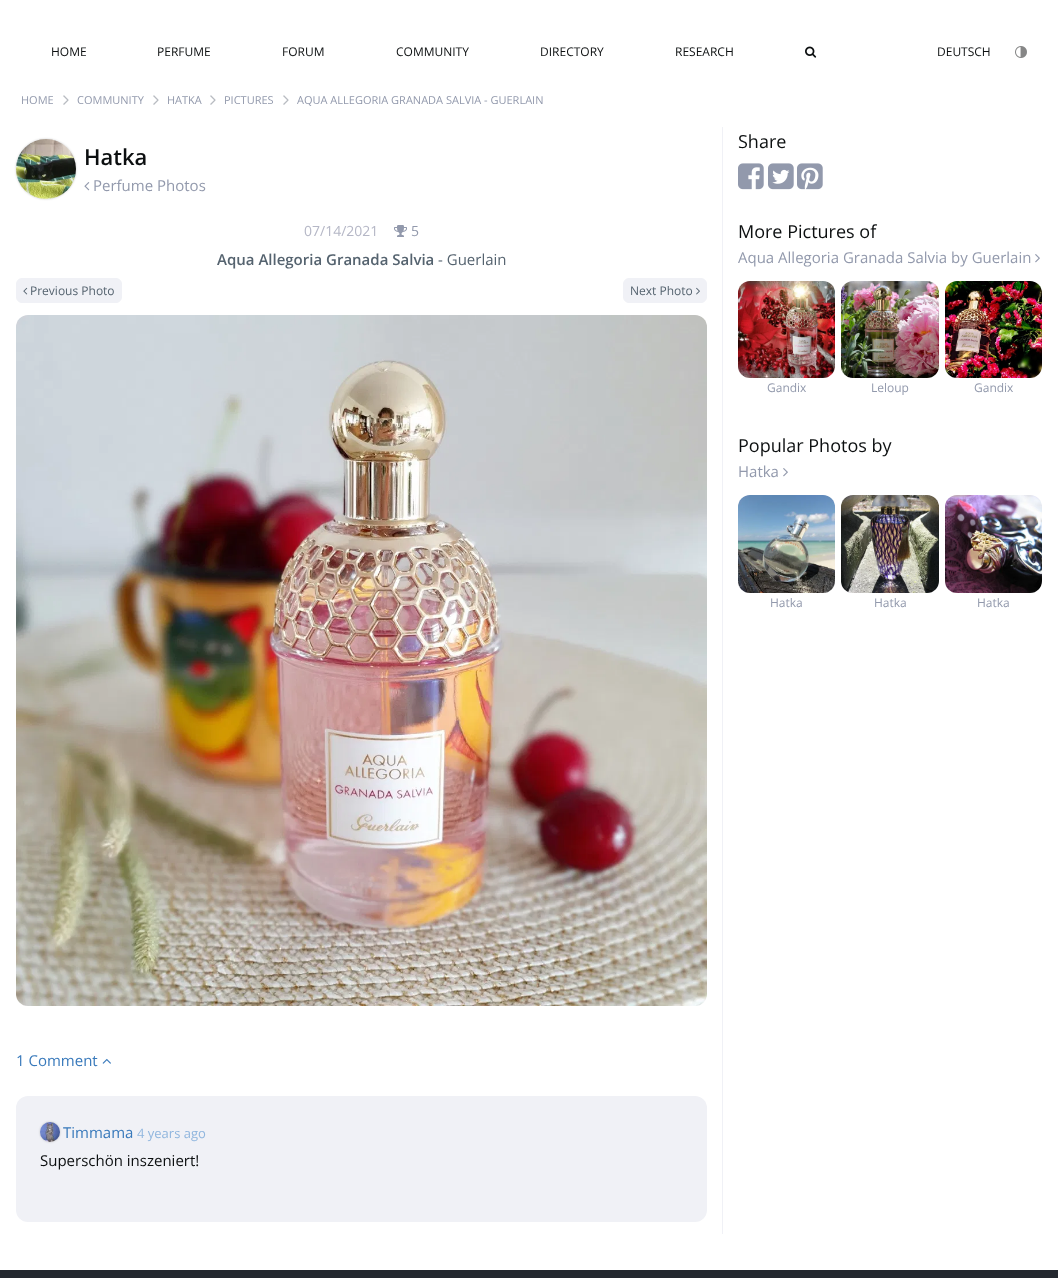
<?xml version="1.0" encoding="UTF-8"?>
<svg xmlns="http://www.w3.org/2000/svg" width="1058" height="1278">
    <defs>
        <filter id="blur1" x="-50%" y="-200%" width="200%" height="500%"><feGaussianBlur stdDeviation="1"/></filter>
    </defs>
    <rect width="100%" height="100%" fill="#FFFFFF"/>
    <text x="51" y="56" font-family="Open Sans" font-size="12" fill="#0C0F10">HOME</text>
    <text x="157" y="56" font-family="Open Sans" font-size="12" fill="#0C0F10">PERFUME</text>
    <text x="282" y="56" font-family="Open Sans" font-size="12" fill="#0C0F10">FORUM</text>
    <text x="396" y="56" font-family="Open Sans" font-size="12" fill="#0C0F10">COMMUNITY</text>
    <text x="540" y="56" font-family="Open Sans" font-size="12" fill="#0C0F10">DIRECTORY</text>
    <text x="675" y="56" font-family="Open Sans" font-size="12" fill="#0C0F10">RESEARCH</text>
    <image x="805" y="46" width="12" height="12" href="img_01.png"/>
    <text x="937" y="56" font-family="Open Sans" font-size="12" fill="#0C0F10">DEUTSCH</text>
    <image x="1015" y="46" width="12" height="12" href="img_02.png"/>
    <text x="21" y="104" font-family="Open Sans" font-size="11" fill="#9299AC">HOME</text>
    <image x="63" y="95" width="6" height="10" href="img_03.png"/>
    <text x="77" y="104" font-family="Open Sans" font-size="11" fill="#9299AC">COMMUNITY</text>
    <image x="153" y="95" width="6" height="10" href="img_03.png"/>
    <text x="167" y="104" font-family="Open Sans" font-size="11" fill="#9299AC">HATKA</text>
    <image x="210" y="95" width="6" height="10" href="img_03.png"/>
    <text x="224" y="104" font-family="Open Sans" font-size="11" fill="#9299AC">PICTURES</text>
    <image x="283" y="95" width="6" height="10" href="img_03.png"/>
    <text x="297" y="104" font-family="Open Sans" font-size="11" fill="#9299AC">AQUA ALLEGORIA GRANADA SALVIA - GUERLAIN</text>
    <rect x="16" y="139" width="60" height="60" rx="30" fill="#000000" fill-opacity="0.2" filter="url(#blur1)"/>
    <image x="16" y="139" width="60" height="60" href="img_04.png"/>
    <text x="84" y="165" font-family="Open Sans" font-size="22" font-weight="600" fill="#0C0F10">Hatka</text>
    <image x="84" y="182" width="6" height="9" href="img_05.png"/>
    <text x="93" y="191" font-family="Open Sans" font-size="15" fill="#9299AC">Perfume Photos</text>
    <text x="304" y="236" font-family="Open Sans" font-size="14" fill="#B5B7C6">07/14/2021</text>
    <image x="394" y="225" width="13" height="12" href="img_06.png"/>
    <text x="411" y="236" font-family="Open Sans" font-size="14" fill="#9299AC">5</text>
    <text x="217" y="265" font-family="Open Sans" font-size="15" font-weight="600" fill="#55636F">Aqua Allegoria Granada Salvia</text>
    <text x="438" y="265" font-family="Open Sans" font-size="15" fill="#55636F">- Guerlain</text>
    <rect x="16.5" y="278.5" width="105" height="24" rx="5.5" fill="#F0F1F6" stroke="#F0F1F6"/>
    <image x="23" y="287" width="5" height="8" href="img_07.png"/>
    <text x="30" y="295" font-family="Open Sans" font-size="12" fill="#55636F">Previous Photo</text>
    <rect x="623.5" y="278.5" width="83" height="24" rx="5.5" fill="#F0F1F6" stroke="#F0F1F6"/>
    <text x="630" y="295" font-family="Open Sans" font-size="12" fill="#55636F">Next Photo</text>
    <image x="696" y="287" width="4" height="8" href="img_08.png"/>
    <image x="16" y="315" width="691" height="691" href="img_09.png"/>
    <text x="16" y="1066" font-family="Open Sans" font-size="15" fill="#3879BB">1 Comment</text>
    <image x="102" y="1058" width="9" height="6" href="img_10.png"/>
    <rect x="16" y="1096" width="691" height="126" rx="12" fill="#F0F1F6"/>
    <rect x="40" y="1122" width="20" height="20" rx="10" fill="#000000" fill-opacity="0.2" filter="url(#blur1)"/>
    <image x="40" y="1122" width="20" height="20" href="img_11.png"/>
    <text x="63" y="1138" font-family="Open Sans" font-size="15" fill="#3879BB">Timmama</text>
    <text x="137" y="1138" font-family="Open Sans" font-size="13" fill="#90B6DE">4 years ago</text>
    <text x="40" y="1166" font-family="Open Sans" font-size="15" fill="#0C0F10">Superschön inszeniert!</text>
    <rect x="722" y="127" width="1" height="1107" fill="#F0F1F6"/>
    <text x="738" y="148" font-family="Open Sans" font-size="18" fill="#0C0F10">Share</text>
    <image x="738" y="163" width="26" height="27" href="img_12.png"/>
    <image x="768" y="163" width="26" height="27" href="img_13.png"/>
    <image x="797" y="163" width="26" height="27" href="img_14.png"/>
    <text x="738" y="238" font-family="Open Sans" font-size="18" fill="#0C0F10">More Pictures of</text>
    <text x="738" y="263" font-family="Open Sans" font-size="15" fill="#9299AC">Aqua Allegoria Granada Salvia by Guerlain</text>
    <image x="1035" y="254" width="5" height="9" href="img_15.png"/>
    <image x="738" y="281" width="97" height="97" href="img_16.png"/>
    <text x="767" y="392" font-family="Open Sans" font-size="12" fill="#9299AC">Gandix</text>
    <image x="841" y="281" width="98" height="97" href="img_17.png"/>
    <text x="871" y="392" font-family="Open Sans" font-size="12" fill="#9299AC">Leloup</text>
    <image x="945" y="281" width="97" height="97" href="img_18.png"/>
    <text x="974" y="392" font-family="Open Sans" font-size="12" fill="#9299AC">Gandix</text>
    <text x="738" y="452" font-family="Open Sans" font-size="18" fill="#0C0F10">Popular Photos by</text>
    <text x="738" y="477" font-family="Open Sans" font-size="15" fill="#9299AC">Hatka</text>
    <image x="783" y="468" width="5" height="9" href="img_15.png"/>
    <image x="738" y="495" width="97" height="98" href="img_19.png"/>
    <text x="770" y="607" font-family="Open Sans" font-size="12" fill="#9299AC">Hatka</text>
    <image x="841" y="495" width="98" height="98" href="img_20.png"/>
    <text x="874" y="607" font-family="Open Sans" font-size="12" fill="#9299AC">Hatka</text>
    <image x="945" y="495" width="97" height="98" href="img_21.png"/>
    <text x="977" y="607" font-family="Open Sans" font-size="12" fill="#9299AC">Hatka</text>
    <rect x="0" y="1270" width="1058" height="8" fill="#24282F"/>
</svg>
